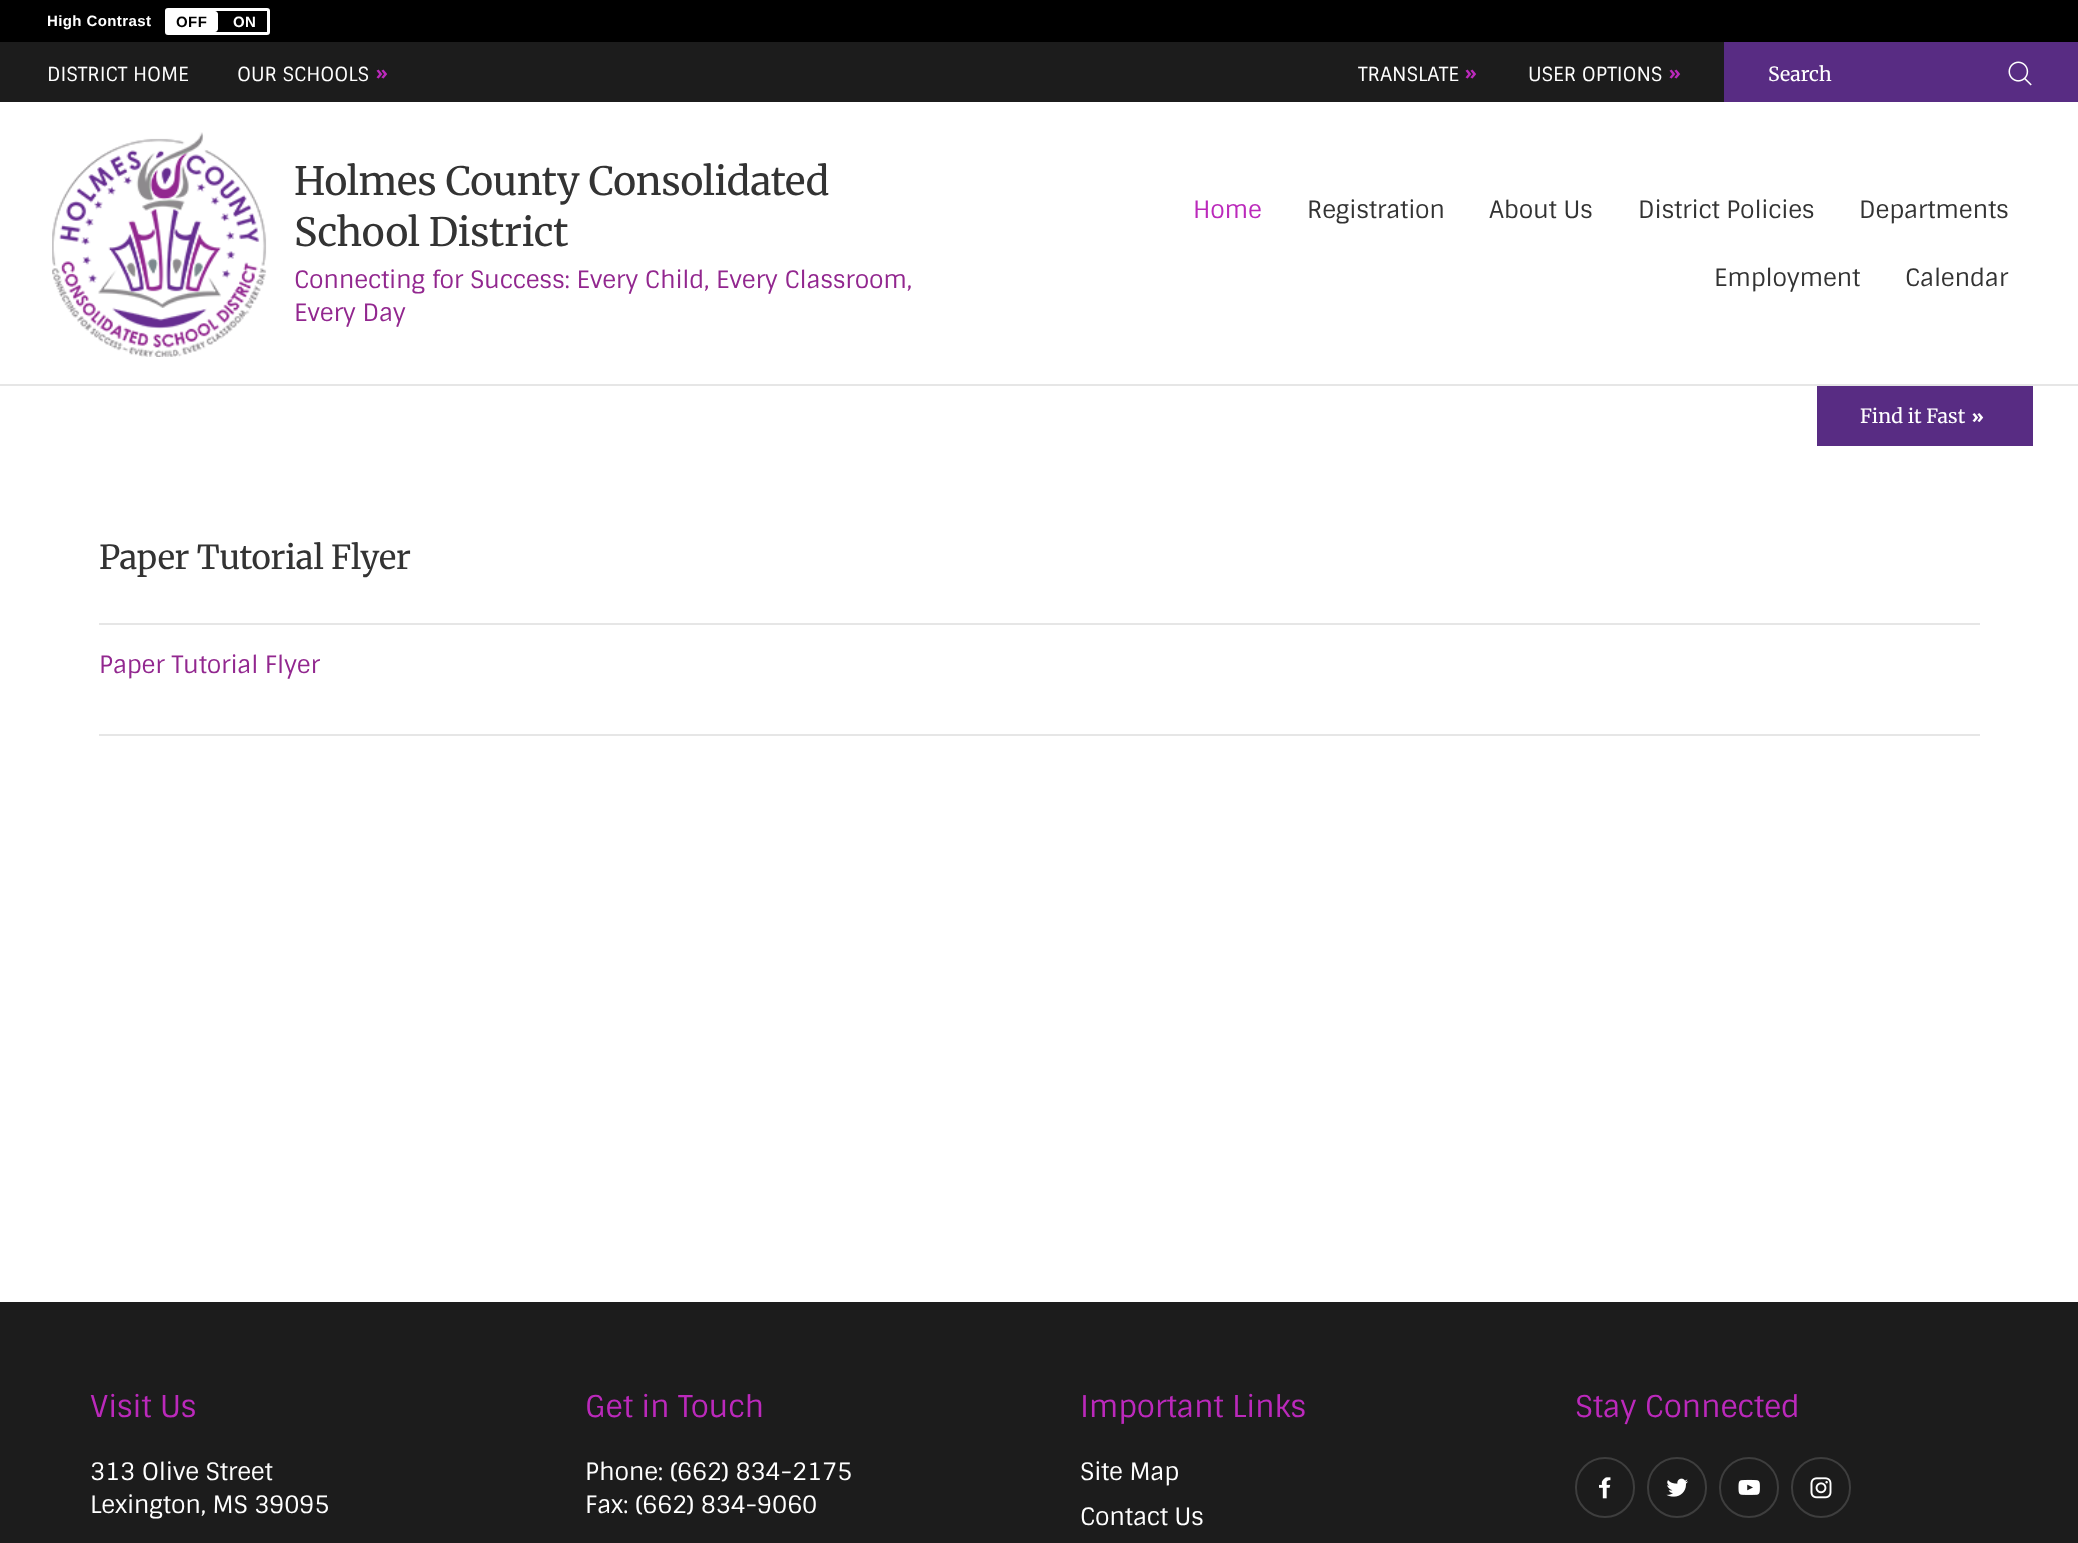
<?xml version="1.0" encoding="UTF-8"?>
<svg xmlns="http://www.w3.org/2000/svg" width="2078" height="1543">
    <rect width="100%" height="100%" fill="#FFFFFF"/>
    <rect x="0" y="0" width="2078" height="42" fill="#000000"/>
    <text x="47" y="26" font-family="Liberation Sans" font-size="15" font-weight="700" letter-spacing="0.4" fill="#FFFFFF">High Contrast</text>
    <rect x="166.5" y="9.5" width="102" height="24" rx="1.5" fill="none" stroke="#FFFFFF" stroke-width="3"/>
    <path d="M 168 11 H 215 C 216.5 11 218 12.5 218 14 V 29 C 218 30.5 216.5 32 215 32 H 168 Z" fill="#FFFFFF"/>
    <text x="176" y="27" font-family="Liberation Sans" font-size="15" font-weight="700" letter-spacing="0.4" fill="#000000">OFF</text>
    <text x="233" y="27" font-family="Liberation Sans" font-size="15" font-weight="700" letter-spacing="0.4" fill="#FFFFFF">ON</text>
    <rect x="0" y="42" width="1724" height="60" fill="#1C1C1C"/>
    <text x="47" y="81" font-family="Sintony" font-size="19.5" letter-spacing="-0.1" fill="#FFFFFF">DISTRICT HOME</text>
    <text x="237" y="81" font-family="Sintony" font-size="19.5" letter-spacing="-0.1" fill="#FFFFFF">OUR SCHOOLS</text>
    <image x="376" y="69" width="12" height="10" href="img_01.png"/>
    <text x="1358" y="81" font-family="Sintony" font-size="19.5" letter-spacing="-0.1" fill="#FFFFFF">TRANSLATE</text>
    <image x="1465" y="69" width="12" height="10" href="img_01.png"/>
    <text x="1528" y="81" font-family="Sintony" font-size="19.5" letter-spacing="-0.1" fill="#FFFFFF">USER OPTIONS</text>
    <image x="1669" y="69" width="12" height="10" href="img_01.png"/>
    <rect x="1724" y="42" width="354" height="60" fill="#582C83"/>
    <text x="1768" y="81" font-family="Merriweather" font-size="19.5" letter-spacing="0.1" fill="#FFFFFF">Search</text>
    <image x="2008" y="61" width="24" height="25" href="img_02.png"/>
    <rect x="0" y="384" width="2078" height="2" fill="#E6E6E6"/>
    <image x="52" y="132" width="215" height="225" href="img_03.png"/>
    <text font-family="Merriweather" font-size="39" letter-spacing="-0.22" fill="#333333">
        <tspan x="294" y="195">Holmes County Consolidated</tspan>
        <tspan x="294" y="246">School District</tspan>
    </text>
    <text font-family="Sintony" font-size="24" letter-spacing="-0.22" fill="#92278F">
        <tspan x="294" y="288">Connecting for Success: Every Child, Every Classroom,</tspan>
        <tspan x="294" y="321">Every Day</tspan>
    </text>
    <text x="1193" y="218" font-family="Sintony" font-size="24" letter-spacing="-0.22" fill="#BB29BB">Home</text>
    <text x="1307" y="218" font-family="Sintony" font-size="24" letter-spacing="-0.22" fill="#333333">Registration</text>
    <text x="1489" y="218" font-family="Sintony" font-size="24" letter-spacing="-0.22" fill="#333333">About Us</text>
    <text x="1638" y="218" font-family="Sintony" font-size="24" letter-spacing="-0.22" fill="#333333">District Policies</text>
    <text x="1859" y="218" font-family="Sintony" font-size="24" letter-spacing="-0.22" fill="#333333">Departments</text>
    <text x="1714" y="286" font-family="Sintony" font-size="24" letter-spacing="-0.22" fill="#333333">Employment</text>
    <text x="1905" y="286" font-family="Sintony" font-size="24" letter-spacing="-0.22" fill="#333333">Calendar</text>
    <rect x="1817" y="386" width="216" height="60" fill="#582C83"/>
    <text x="1860" y="423" font-family="Merriweather" font-size="19.5" letter-spacing="0.1" fill="#FFFFFF">Find it Fast</text>
    <image x="1972" y="413" width="12" height="9" href="img_04.png"/>
    <rect x="99" y="623" width="1881" height="2" fill="#E6E6E6"/>
    <text x="99" y="569" font-family="Merriweather" font-size="33" letter-spacing="-0.22" fill="#333333">Paper Tutorial Flyer</text>
    <text x="99" y="673" font-family="Sintony" font-size="24" letter-spacing="-0.22" fill="#92278F">Paper Tutorial Flyer</text>
    <rect x="99" y="734" width="1881" height="2" fill="#E6E6E6"/>
    <rect x="0" y="1302" width="2078" height="241" fill="#1C1C1C"/>
    <text x="90" y="1417" font-family="Sintony" font-size="30" letter-spacing="-0.22" fill="#BB29BB">Visit Us</text>
    <text font-family="Sintony" font-size="24" letter-spacing="-0.22" fill="#FFFFFF">
        <tspan x="90" y="1480">313 Olive Street</tspan>
        <tspan x="90" y="1513">Lexington, MS 39095</tspan>
    </text>
    <text x="585" y="1417" font-family="Sintony" font-size="30" letter-spacing="-0.22" fill="#BB29BB">Get in Touch</text>
    <text font-family="Sintony" font-size="24" letter-spacing="-0.22" fill="#FFFFFF">
        <tspan x="585" y="1480">Phone: (662) 834-2175</tspan>
        <tspan x="585" y="1513">Fax: (662) 834-9060</tspan>
    </text>
    <text x="1080" y="1417" font-family="Sintony" font-size="30" letter-spacing="-0.22" fill="#BB29BB">Important Links</text>
    <text font-family="Sintony" font-size="24" letter-spacing="-0.22" fill="#FFFFFF">
        <tspan x="1080" y="1480">Site Map</tspan>
        <tspan x="1080" y="1525">Contact Us</tspan>
    </text>
    <text x="1575" y="1417" font-family="Sintony" font-size="30" letter-spacing="-0.22" fill="#BB29BB">Stay Connected</text>
    <rect x="1576" y="1458" width="58" height="59" rx="29" fill="none" stroke="#3E3E3E" stroke-width="2"/>
    <image x="1599" y="1477" width="12" height="22" href="img_05.png"/>
    <rect x="1648" y="1458" width="58" height="59" rx="29" fill="none" stroke="#3E3E3E" stroke-width="2"/>
    <image x="1666" y="1478" width="22" height="19" href="img_06.png"/>
    <rect x="1720" y="1458" width="58" height="59" rx="29" fill="none" stroke="#3E3E3E" stroke-width="2"/>
    <image x="1738" y="1479" width="22" height="16" href="img_07.png"/>
    <rect x="1792" y="1458" width="58" height="59" rx="29" fill="none" stroke="#3E3E3E" stroke-width="2"/>
    <image x="1810" y="1477" width="22" height="22" href="img_08.png"/>
</svg>
